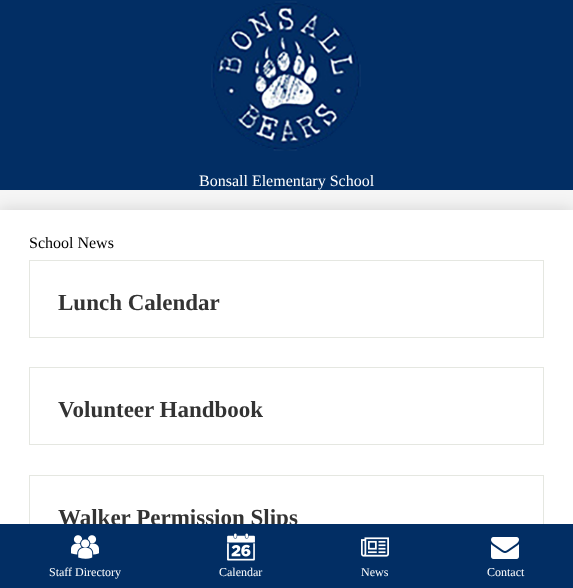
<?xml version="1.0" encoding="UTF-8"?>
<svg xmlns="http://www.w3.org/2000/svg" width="573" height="588">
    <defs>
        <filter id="blur1" x="-50%" y="-200%" width="200%" height="500%"><feGaussianBlur stdDeviation="8"/></filter>
    </defs>
    <rect width="100%" height="100%" fill="#F5F5F5"/>
    <rect x="0" y="210" width="573" height="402" fill="#000000" fill-opacity="0.15" filter="url(#blur1)"/>
    <rect x="0" y="0" width="573" height="190" fill="#022E64"/>
    <image x="211" y="1" width="150" height="150" href="img_01.png"/>
    <text x="199" y="186" font-family="Liberation Serif" font-size="16" fill="#FFFFFF">Bonsall Elementary School</text>
    <rect x="0" y="210" width="573" height="314" fill="#FFFFFF"/>
    <text x="29" y="248" font-family="Liberation Serif" font-size="16" fill="#000000">School News</text>
    <rect x="29.5" y="260.5" width="514" height="77" fill="none" stroke="#E5E7E1"/>
    <text x="58" y="310" font-family="Liberation Serif" font-size="23" font-weight="700" fill="#333333">Lunch Calendar</text>
    <rect x="29.5" y="367.5" width="514" height="77" fill="none" stroke="#E5E7E1"/>
    <text x="58" y="417" font-family="Liberation Serif" font-size="23" font-weight="700" fill="#333333">Volunteer Handbook</text>
    <rect x="29.5" y="475.5" width="514" height="77" fill="none" stroke="#E5E7E1"/>
    <text x="58" y="525" font-family="Liberation Serif" font-size="23" font-weight="700" fill="#333333">Walker Permission Slips</text>
    <rect x="0" y="524" width="573" height="64" fill="#022E64"/>
    <image x="71" y="535" width="28" height="24" href="img_02.png"/>
    <text x="49" y="576" font-family="Liberation Serif" font-size="12" fill="#FFFFFF">Staff Directory</text>
    <image x="227" y="533" width="28" height="28" href="img_03.png"/>
    <text x="219" y="576" font-family="Liberation Serif" font-size="12" fill="#FFFFFF">Calendar</text>
    <image x="361" y="537" width="28" height="20" href="img_04.png"/>
    <text x="361" y="576" font-family="Liberation Serif" font-size="12" fill="#FFFFFF">News</text>
    <image x="491" y="537" width="28" height="22" href="img_05.png"/>
    <text x="487" y="576" font-family="Liberation Serif" font-size="12" fill="#FFFFFF">Contact</text>
</svg>
